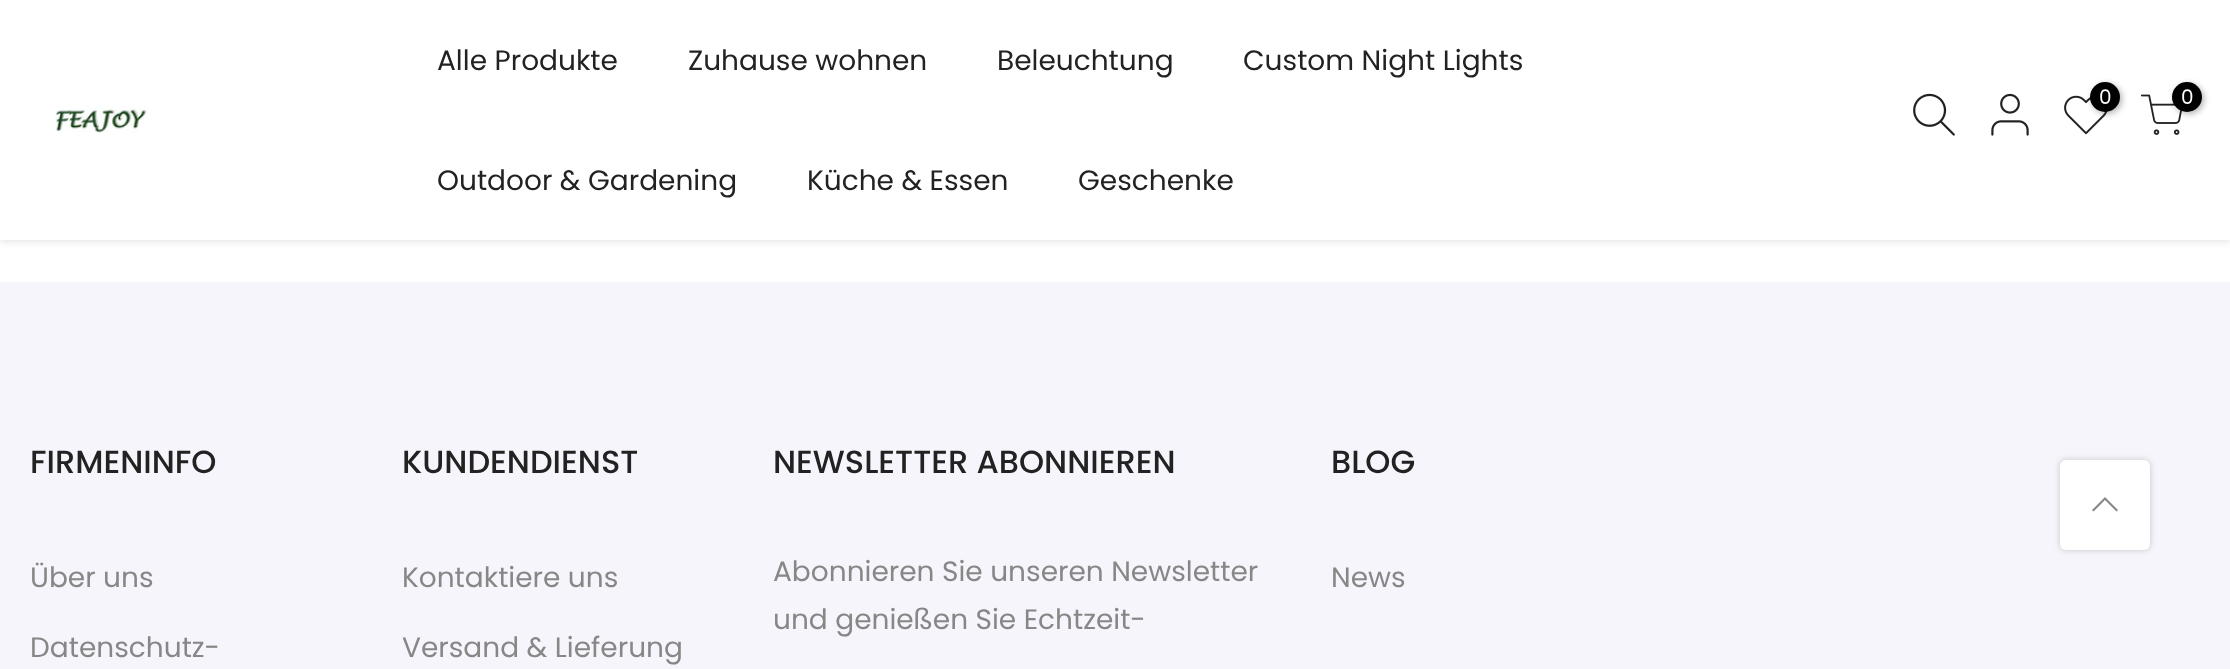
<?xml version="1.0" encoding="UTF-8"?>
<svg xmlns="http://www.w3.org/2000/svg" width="2230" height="669">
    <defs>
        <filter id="blur1" x="-50%" y="-200%" width="200%" height="500%"><feGaussianBlur stdDeviation="3"/></filter>
    </defs>
    <rect width="100%" height="100%" fill="#FFFFFF"/>
    <rect x="0" y="2" width="2230" height="240" fill="#000000" fill-opacity="0.1" filter="url(#blur1)"/>
    <rect x="0" y="0" width="2230" height="240" fill="#FFFFFF"/>
    <text x="437" y="70" font-family="Poppins" font-size="28" fill="#222222">Alle Produkte</text>
    <text x="688" y="70" font-family="Poppins" font-size="28" fill="#222222">Zuhause wohnen</text>
    <text x="997" y="70" font-family="Poppins" font-size="28" fill="#222222">Beleuchtung</text>
    <text x="1243" y="70" font-family="Poppins" font-size="28" fill="#222222">Custom Night Lights</text>
    <text x="437" y="190" font-family="Poppins" font-size="28" fill="#222222">Outdoor &amp; Gardening</text>
    <text x="807" y="190" font-family="Poppins" font-size="28" fill="#222222">Küche &amp; Essen</text>
    <text x="1078" y="190" font-family="Poppins" font-size="28" fill="#222222">Geschenke</text>
    <image x="1913" y="93" width="42" height="43" href="img_01.png"/>
    <image x="1991" y="93" width="38" height="43" href="img_02.png"/>
    <image x="2064" y="95" width="44" height="40" href="img_03.png"/>
    <rect x="2092" y="84" width="30" height="30" rx="15" fill="#000000" fill-opacity="0.3" filter="url(#blur1)"/>
    <circle cx="2105" cy="97" r="15" fill="#000000"/>
    <text x="2099" y="104" font-family="Poppins" font-size="20" fill="#FFFFFF">0</text>
    <image x="2140" y="94" width="42" height="41" href="img_04.png"/>
    <rect x="2174" y="84" width="30" height="30" rx="15" fill="#000000" fill-opacity="0.3" filter="url(#blur1)"/>
    <circle cx="2187" cy="97" r="15" fill="#000000"/>
    <text x="2181" y="104" font-family="Poppins" font-size="20" fill="#FFFFFF">0</text>
    <image x="55" y="105" width="93" height="28" href="img_05.png"/>
    <rect x="0" y="282" width="2230" height="387" fill="#F5F5FB"/>
    <text x="30" y="473" font-family="Poppins" font-size="32" font-weight="500" fill="#222222">FIRMENINFO</text>
    <text x="30" y="587" font-family="Poppins" font-size="28" fill="#878787">Über uns</text>
    <text x="30" y="657" font-family="Poppins" font-size="28" fill="#878787">Datenschutz-</text>
    <text x="402" y="473" font-family="Poppins" font-size="32" font-weight="500" fill="#222222">KUNDENDIENST</text>
    <text x="402" y="587" font-family="Poppins" font-size="28" fill="#878787">Kontaktiere uns</text>
    <text x="402" y="657" font-family="Poppins" font-size="28" fill="#878787">Versand &amp; Lieferung</text>
    <text x="773" y="473" font-family="Poppins" font-size="32" font-weight="500" fill="#222222">NEWSLETTER ABONNIEREN</text>
    <text font-family="Poppins" font-size="28" fill="#878787">
        <tspan x="773" y="581">Abonnieren Sie unseren Newsletter</tspan>
        <tspan x="773" y="629">und genießen Sie Echtzeit-</tspan>
    </text>
    <text x="1331" y="473" font-family="Poppins" font-size="32" font-weight="500" fill="#222222">BLOG</text>
    <text x="1331" y="587" font-family="Poppins" font-size="28" fill="#878787">News</text>
    <rect x="2060" y="460" width="90" height="90" rx="6" fill="#000000" fill-opacity="0.2" filter="url(#blur1)"/>
    <rect x="2060" y="460" width="90" height="90" rx="6" fill="#FFFFFF"/>
    <path d="M 2106.5 498.5 L 2105 497 L 2092 510 L 2093.5 511.5 L 2105 500 L 2116.5 511.5 L 2118 510 Z" fill="#878787"/>
</svg>
